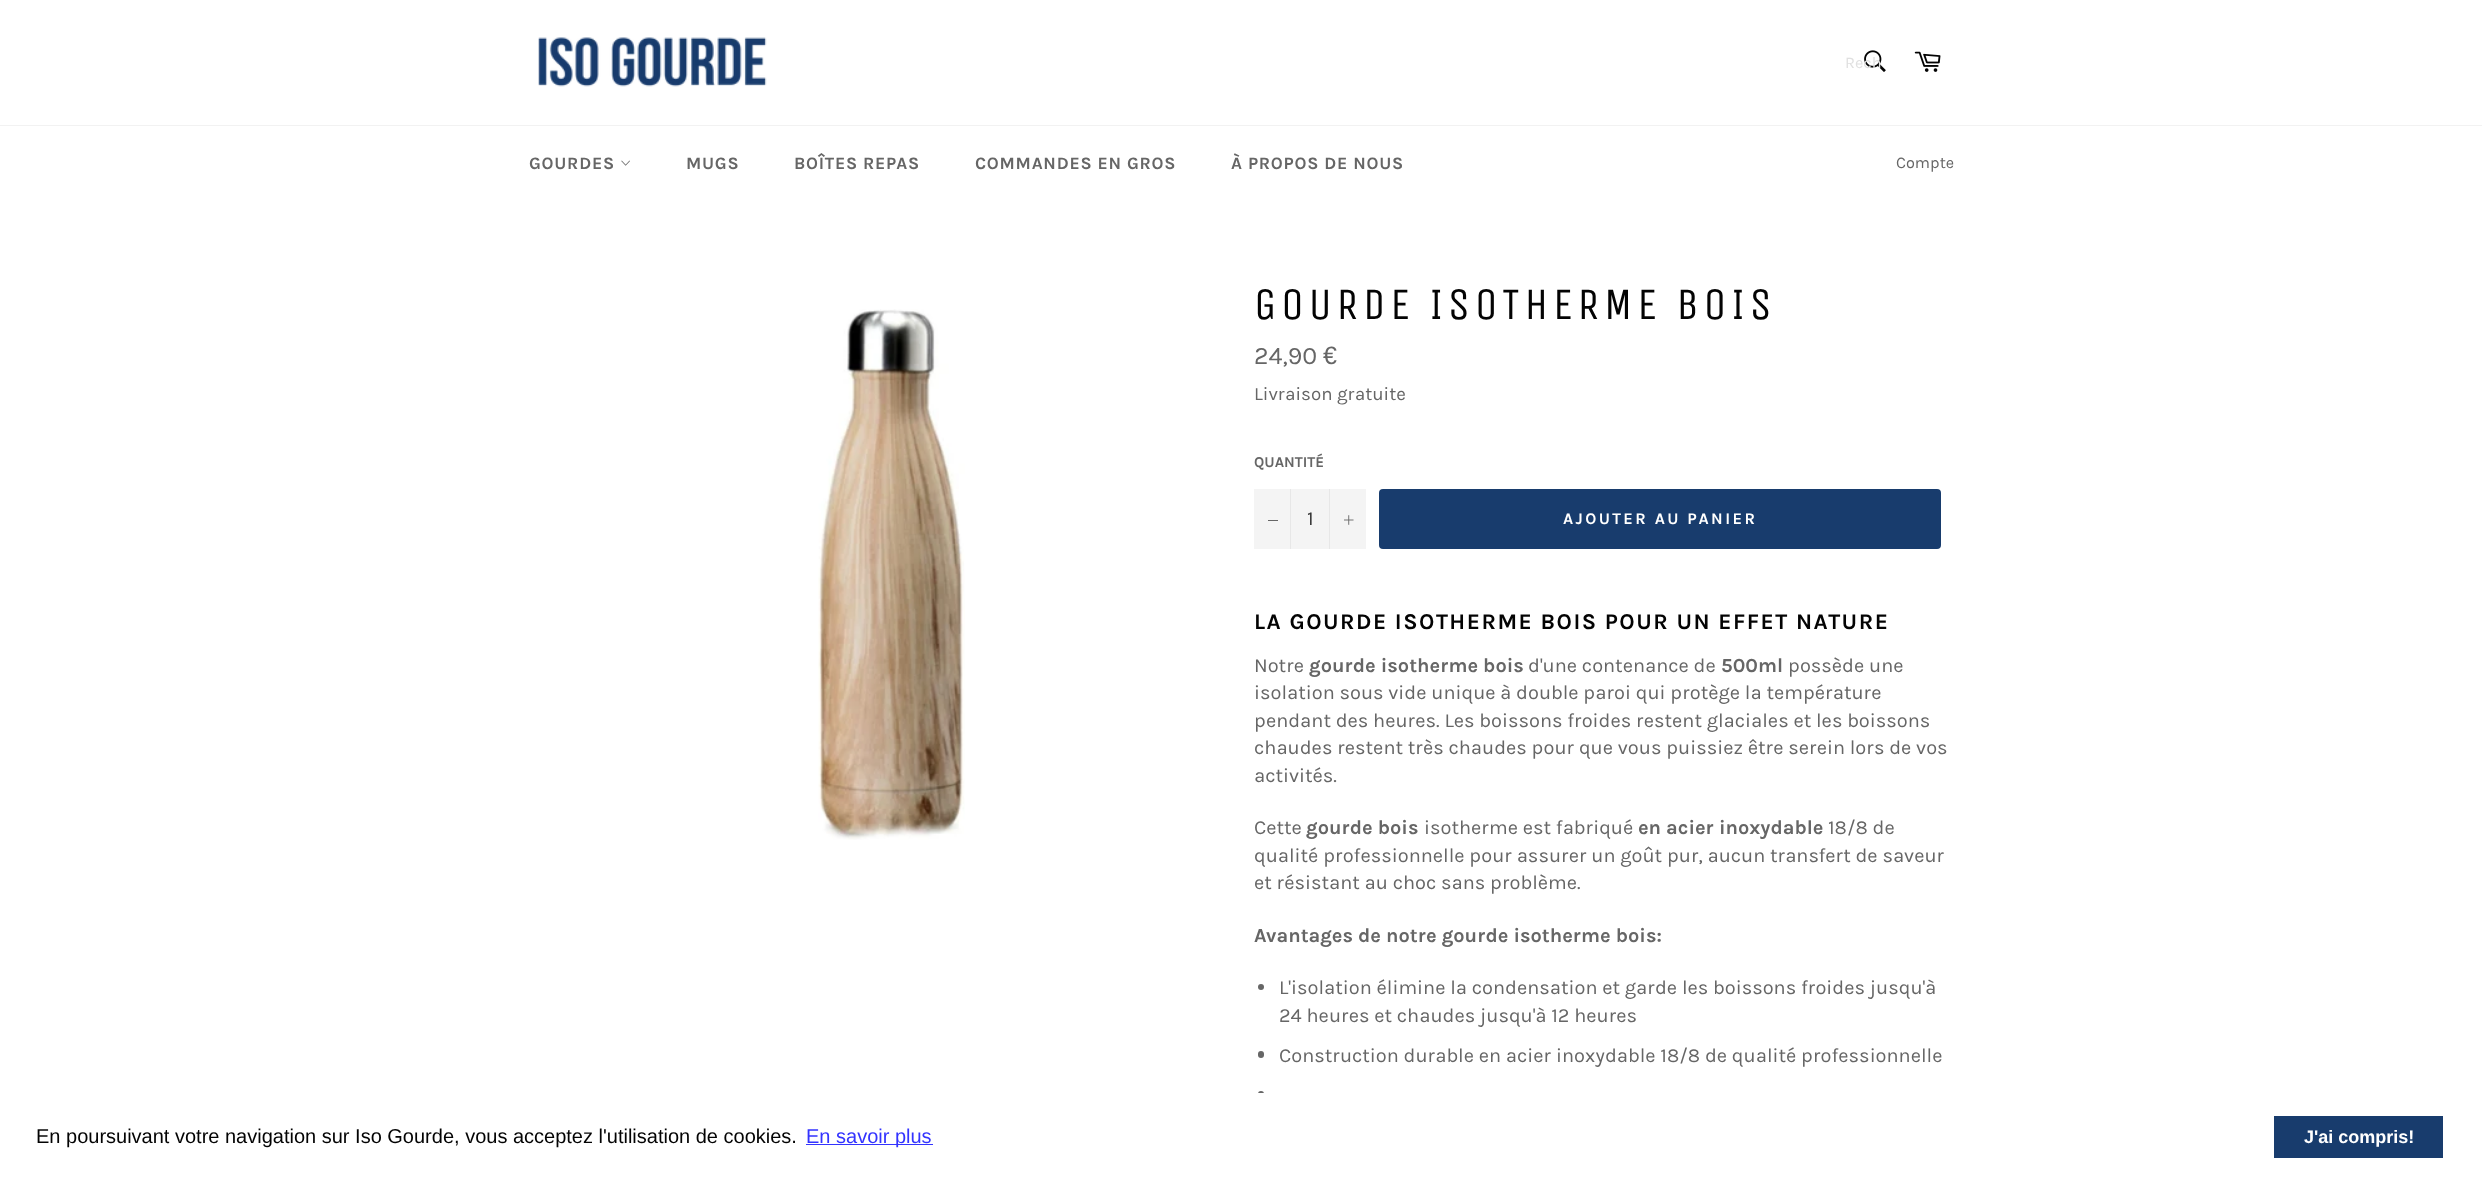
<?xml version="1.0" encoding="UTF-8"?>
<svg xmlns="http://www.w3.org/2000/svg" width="2482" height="1181">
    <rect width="100%" height="100%" fill="#FFFFFF"/>
    <image x="538" y="37" width="229" height="50" href="img_01.png"/>
    <image x="1864" y="50" width="22" height="22" href="img_02.png"/>
    <text x="1845" y="68" font-family="Karla" font-size="16.25" fill="#E0E0E0">Rech</text>
    <image x="1914" y="51" width="27" height="21" href="img_03.png"/>
    <rect x="0" y="125" width="2482" height="1" fill="#F2F2F2"/>
    <text x="529" y="169" font-family="Karla" font-size="17.5" font-weight="700" letter-spacing="0.75" fill="#666666">GOURDES</text>
    <image x="621" y="160" width="9" height="6" href="img_04.png"/>
    <text x="686" y="169" font-family="Karla" font-size="17.5" font-weight="700" letter-spacing="0.75" fill="#666666">MUGS</text>
    <text x="794" y="169" font-family="Karla" font-size="17.5" font-weight="700" letter-spacing="0.75" fill="#666666">BOÎTES REPAS</text>
    <text x="975" y="169" font-family="Karla" font-size="17.5" font-weight="700" letter-spacing="0.75" fill="#666666">COMMANDES EN GROS</text>
    <text x="1231" y="169" font-family="Karla" font-size="17.5" font-weight="700" letter-spacing="0.75" fill="#666666">À PROPOS DE NOUS</text>
    <text x="1896" y="168" font-family="Karla" font-size="16.25" fill="#666666">Compte</text>
    <image x="818" y="309" width="147" height="531" href="img_05.png"/>
    <text x="1254" y="319" font-family="Unica One" font-size="45" letter-spacing="4.5" fill="#030303">GOURDE ISOTHERME BOIS</text>
    <text x="1254" y="364" font-family="Karla" font-size="25" fill="#666666">24,90</text>
    <text x="1323" y="364" font-family="Liberation Sans" font-size="25" fill="#666666">€</text>
    <text x="1254" y="400" font-family="Karla" font-size="18.75" fill="#666666">Livraison gratuite</text>
    <text x="1254" y="467" font-family="Karla" font-size="15" font-weight="700" fill="#666666">QUANTITÉ</text>
    <rect x="1254" y="489" width="112" height="60" fill="#F4F4F4"/>
    <rect x="1290" y="489" width="1" height="60" fill="#E7E7E7"/>
    <rect x="1268" y="520" width="10" height="1" fill="#666666"/>
    <text x="1307" y="525" font-family="Karla" font-size="20" fill="#333333">1</text>
    <rect x="1329" y="489" width="1" height="60" fill="#E7E7E7"/>
    <image x="1344" y="515" width="10" height="10" href="img_06.png"/>
    <rect x="1379" y="489" width="562" height="60" rx="4" fill="#183C6D"/>
    <text x="1563" y="524" font-family="Karla" font-size="16.25" font-weight="700" letter-spacing="2.4" fill="#FFFFFF">AJOUTER AU PANIER</text>
    <text x="1254" y="629" font-family="Karla" font-size="22.5" font-weight="700" letter-spacing="1.5" fill="#030303">LA GOURDE ISOTHERME BOIS POUR UN EFFET NATURE</text>
    <text x="1254" y="672" font-family="Karla" font-size="20" fill="#666666">Notre</text>
    <text x="1309" y="672" font-family="Karla" font-size="20" font-weight="700" fill="#666666">gourde isotherme bois</text>
    <text x="1528" y="672" font-family="Karla" font-size="20" fill="#666666">d'une contenance de</text>
    <text x="1721" y="672" font-family="Karla" font-size="20" font-weight="700" fill="#666666">500ml</text>
    <text x="1788" y="672" font-family="Karla" font-size="20" fill="#666666">possède une</text>
    <text font-family="Karla" font-size="20" fill="#666666">
        <tspan x="1254" y="699">isolation sous vide unique à double paroi qui protège la température</tspan>
        <tspan x="1254" y="727">pendant des heures. Les boissons froides restent glaciales et les boissons</tspan>
        <tspan x="1254" y="754">chaudes restent très chaudes pour que vous puissiez être serein lors de vos</tspan>
        <tspan x="1254" y="782">activités.</tspan>
    </text>
    <text x="1254" y="834" font-family="Karla" font-size="20" fill="#666666">Cette</text>
    <text x="1306" y="834" font-family="Karla" font-size="20" font-weight="700" fill="#666666">gourde bois</text>
    <text x="1424" y="834" font-family="Karla" font-size="20" fill="#666666">isotherme est fabriqué</text>
    <text x="1638" y="834" font-family="Karla" font-size="20" font-weight="700" fill="#666666">en acier inoxydable</text>
    <text x="1828" y="834" font-family="Karla" font-size="20" fill="#666666">18/8 de</text>
    <text font-family="Karla" font-size="20" fill="#666666">
        <tspan x="1254" y="862">qualité professionnelle pour assurer un goût pur, aucun transfert de saveur</tspan>
        <tspan x="1254" y="889">et résistant au choc sans problème.</tspan>
    </text>
    <text x="1254" y="942" font-family="Karla" font-size="20" font-weight="700" fill="#666666">Avantages de notre gourde isotherme bois:</text>
    <circle cx="1261" cy="987" r="3" fill="#666666"/>
    <text font-family="Karla" font-size="20" fill="#666666">
        <tspan x="1279" y="994">L'isolation élimine la condensation et garde les boissons froides jusqu'à</tspan>
        <tspan x="1279" y="1022">24 heures et chaudes jusqu'à 12 heures</tspan>
    </text>
    <rect x="1258" y="1051" width="6" height="7" rx="3" fill="#666666"/>
    <text x="1279" y="1062" font-family="Karla" font-size="20" fill="#666666">Construction durable en acier inoxydable 18/8 de qualité professionnelle</text>
    <rect x="1258" y="1091" width="6" height="7" rx="3" fill="#666666"/>
    <rect x="1258" y="1093" width="6" height="5" fill="#FFFFFF"/>
    <text x="36" y="1143" font-family="Liberation Sans" font-size="20" fill="#030303">En poursuivant votre navigation sur Iso Gourde, vous acceptez l'utilisation de cookies.</text>
    <rect x="806" y="1144" width="127" height="1" fill="#3333FF"/>
    <text x="806" y="1143" font-family="Liberation Sans" font-size="20" fill="#3333FF">En savoir plus</text>
    <rect x="2274" y="1116" width="169" height="42" fill="#183C6D"/>
    <text x="2304" y="1143" font-family="Liberation Sans" font-size="18" font-weight="700" fill="#FFFFFF">J'ai compris!</text>
</svg>
